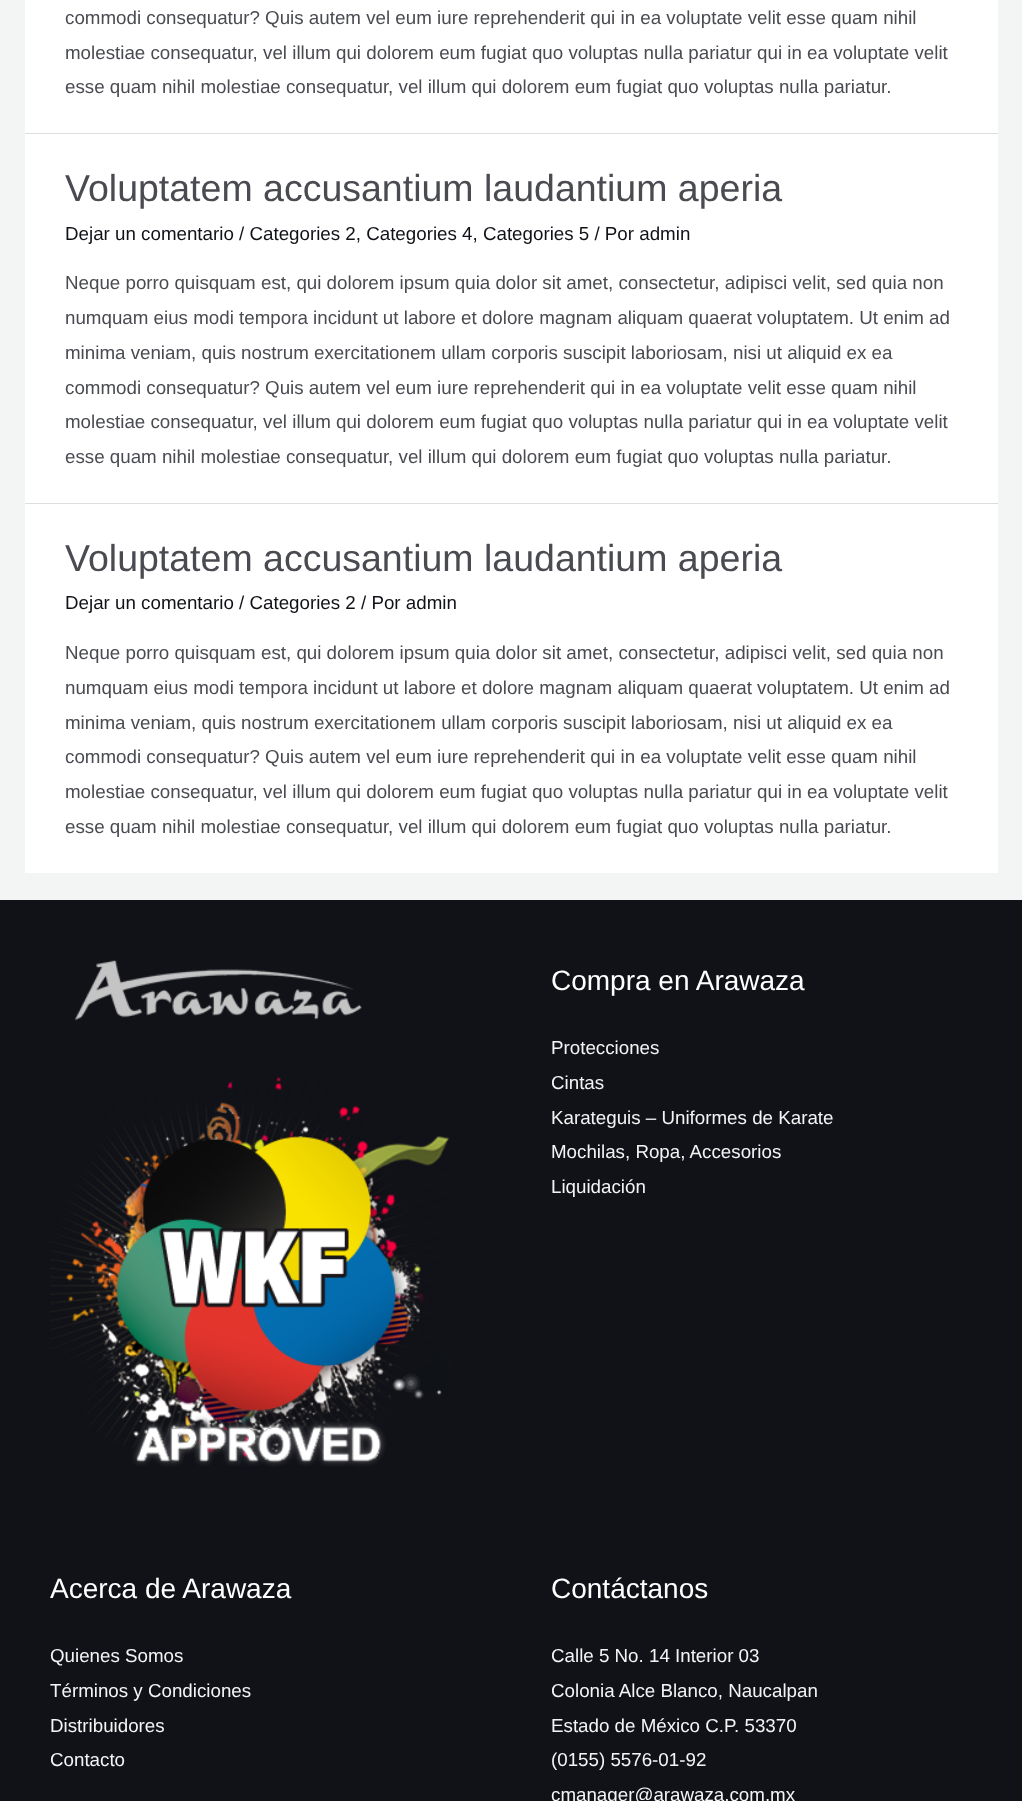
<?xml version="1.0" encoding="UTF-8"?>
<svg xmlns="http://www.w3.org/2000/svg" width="1022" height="1801">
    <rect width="100%" height="100%" fill="#F3F5F5"/>
    <rect x="25" y="0" width="973" height="133" fill="#FFFFFF"/>
    <rect x="25" y="133" width="973" height="1" fill="#DDDDDD"/>
    <text font-family="Liberation Sans" font-size="18.75" fill="#494B51">
        <tspan x="65" y="24">commodi consequatur? Quis autem vel eum iure reprehenderit qui in ea voluptate velit esse quam nihil</tspan>
        <tspan x="65" y="59">molestiae consequatur, vel illum qui dolorem eum fugiat quo voluptas nulla pariatur qui in ea voluptate velit</tspan>
        <tspan x="65" y="93">esse quam nihil molestiae consequatur, vel illum qui dolorem eum fugiat quo voluptas nulla pariatur.</tspan>
    </text>
    <rect x="25" y="134" width="973" height="369" fill="#FFFFFF"/>
    <rect x="25" y="503" width="973" height="1" fill="#DDDDDD"/>
    <text x="65" y="201" font-family="Liberation Sans" font-size="37.5" fill="#494B51">Voluptatem accusantium laudantium aperia</text>
    <text x="65" y="240" font-family="Liberation Sans" font-size="18.75" fill="#101218">Dejar un comentario / Categories 2, Categories 4, Categories 5 / Por admin</text>
    <text font-family="Liberation Sans" font-size="18.75" fill="#494B51">
        <tspan x="65" y="289">Neque porro quisquam est, qui dolorem ipsum quia dolor sit amet, consectetur, adipisci velit, sed quia non</tspan>
        <tspan x="65" y="324">numquam eius modi tempora incidunt ut labore et dolore magnam aliquam quaerat voluptatem. Ut enim ad</tspan>
        <tspan x="65" y="359">minima veniam, quis nostrum exercitationem ullam corporis suscipit laboriosam, nisi ut aliquid ex ea</tspan>
        <tspan x="65" y="394">commodi consequatur? Quis autem vel eum iure reprehenderit qui in ea voluptate velit esse quam nihil</tspan>
        <tspan x="65" y="428">molestiae consequatur, vel illum qui dolorem eum fugiat quo voluptas nulla pariatur qui in ea voluptate velit</tspan>
        <tspan x="65" y="463">esse quam nihil molestiae consequatur, vel illum qui dolorem eum fugiat quo voluptas nulla pariatur.</tspan>
    </text>
    <rect x="25" y="504" width="973" height="369" fill="#FFFFFF"/>
    <text x="65" y="571" font-family="Liberation Sans" font-size="37.5" fill="#494B51">Voluptatem accusantium laudantium aperia</text>
    <text x="65" y="609" font-family="Liberation Sans" font-size="18.75" fill="#101218">Dejar un comentario / Categories 2 / Por admin</text>
    <text font-family="Liberation Sans" font-size="18.75" fill="#494B51">
        <tspan x="65" y="659">Neque porro quisquam est, qui dolorem ipsum quia dolor sit amet, consectetur, adipisci velit, sed quia non</tspan>
        <tspan x="65" y="694">numquam eius modi tempora incidunt ut labore et dolore magnam aliquam quaerat voluptatem. Ut enim ad</tspan>
        <tspan x="65" y="729">minima veniam, quis nostrum exercitationem ullam corporis suscipit laboriosam, nisi ut aliquid ex ea</tspan>
        <tspan x="65" y="763">commodi consequatur? Quis autem vel eum iure reprehenderit qui in ea voluptate velit esse quam nihil</tspan>
        <tspan x="65" y="798">molestiae consequatur, vel illum qui dolorem eum fugiat quo voluptas nulla pariatur qui in ea voluptate velit</tspan>
        <tspan x="65" y="833">esse quam nihil molestiae consequatur, vel illum qui dolorem eum fugiat quo voluptas nulla pariatur.</tspan>
    </text>
    <rect x="0" y="900" width="1022" height="901" fill="#101218"/>
    <image x="74" y="960" width="288" height="61" href="img_01.png"/>
    <image x="50" y="1077" width="400" height="390" href="img_02.png"/>
    <text x="551" y="990" font-family="Liberation Sans" font-size="28" fill="#FFFFFF">Compra en Arawaza</text>
    <text font-family="Liberation Sans" font-size="18.75" fill="#F3F5F5">
        <tspan x="551" y="1054">Protecciones</tspan>
        <tspan x="551" y="1089">Cintas</tspan>
        <tspan x="551" y="1124">Karateguis – Uniformes de Karate</tspan>
        <tspan x="551" y="1158">Mochilas, Ropa, Accesorios</tspan>
        <tspan x="551" y="1193">Liquidación</tspan>
    </text>
    <text x="50" y="1598" font-family="Liberation Sans" font-size="28" fill="#FFFFFF">Acerca de Arawaza</text>
    <text font-family="Liberation Sans" font-size="18.75" fill="#F3F5F5">
        <tspan x="50" y="1662">Quienes Somos</tspan>
        <tspan x="50" y="1697">Términos y Condiciones</tspan>
        <tspan x="50" y="1732">Distribuidores</tspan>
        <tspan x="50" y="1766">Contacto</tspan>
    </text>
    <text x="551" y="1598" font-family="Liberation Sans" font-size="28" fill="#FFFFFF">Contáctanos</text>
    <text font-family="Liberation Sans" font-size="18.75" fill="#F3F5F5">
        <tspan x="551" y="1662">Calle 5 No. 14 Interior 03</tspan>
        <tspan x="551" y="1697">Colonia Alce Blanco, Naucalpan</tspan>
        <tspan x="551" y="1732">Estado de México C.P. 53370</tspan>
        <tspan x="551" y="1766">(0155) 5576-01-92</tspan>
        <tspan x="551" y="1801">cmanager@arawaza.com.mx</tspan>
    </text>
</svg>
